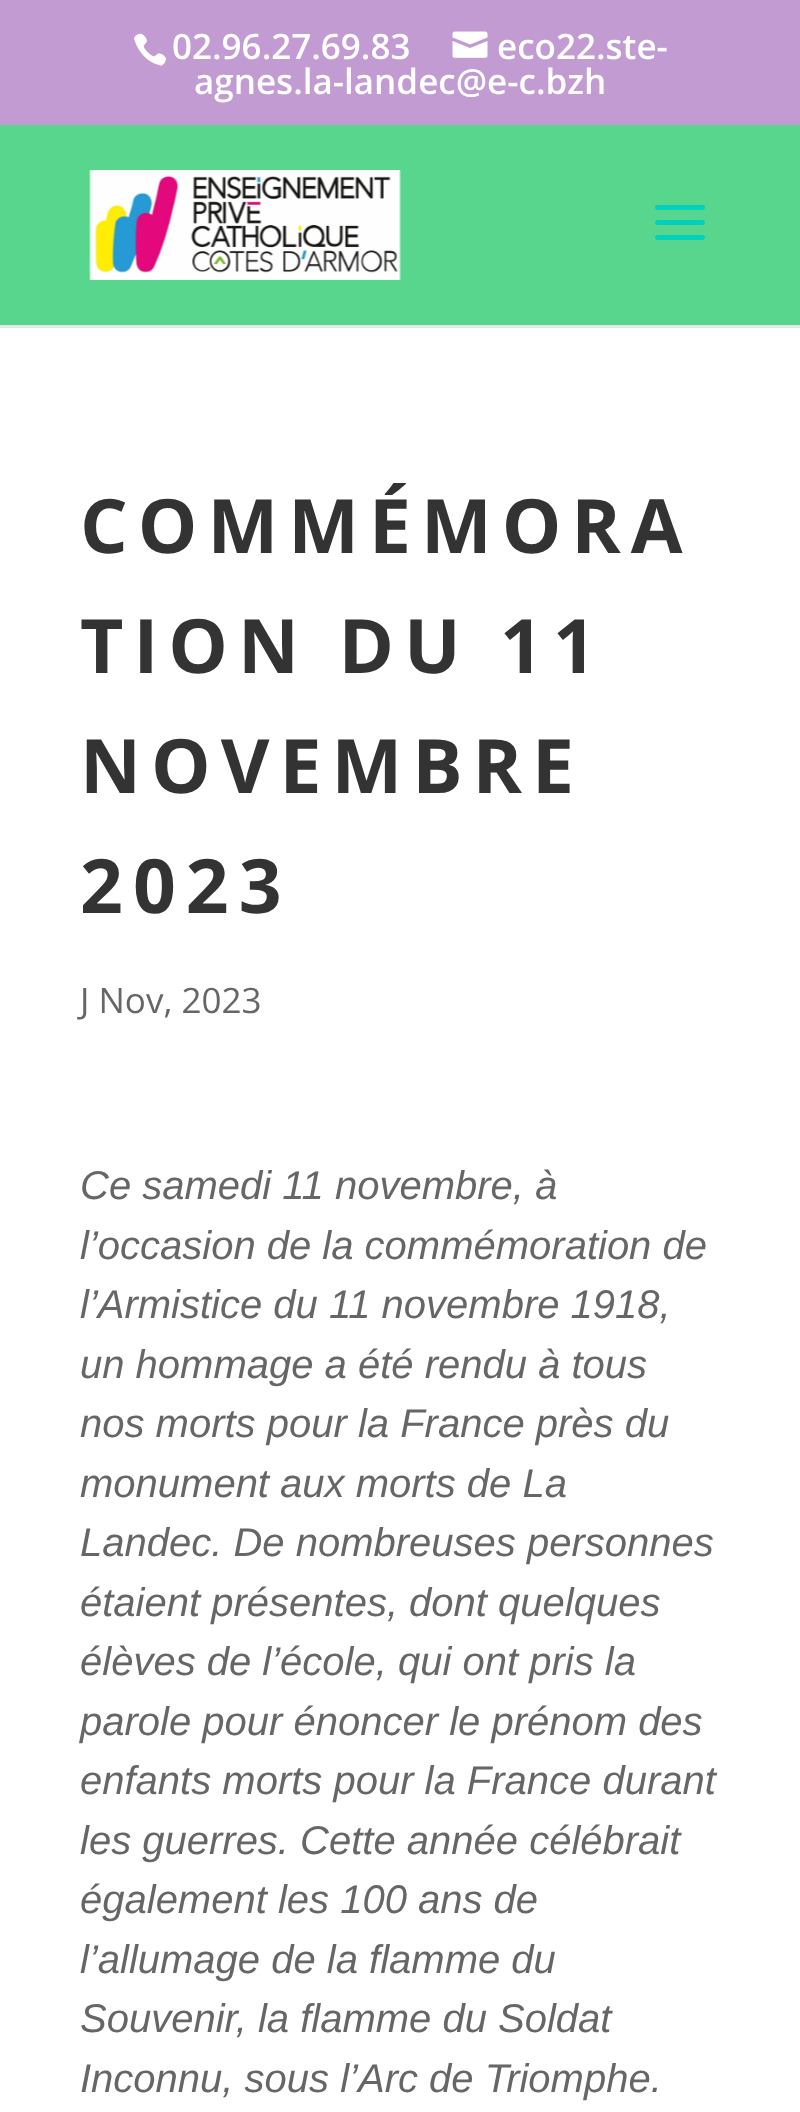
<?xml version="1.0" encoding="UTF-8"?>
<svg xmlns="http://www.w3.org/2000/svg" width="800" height="2112">
    <rect width="100%" height="100%" fill="#FFFFFF"/>
    <rect x="0" y="0" width="800" height="125" fill="#C39BD3"/>
    <image x="134" y="33" width="32" height="33" href="img_01.png"/>
    <text x="172" y="59" font-family="Open Sans" font-size="35" font-weight="600" fill="#FFFFFF">02.96.27.69.83</text>
    <image x="452" y="31" width="36" height="27" href="img_02.png"/>
    <text x="497" y="59" font-family="Open Sans" font-size="35" font-weight="600" fill="#FFFFFF">eco22.ste-</text>
    <text x="194" y="94" font-family="Open Sans" font-size="35" font-weight="600" fill="#FFFFFF">agnes.la-landec@e-c.bzh</text>
    <rect x="0" y="325" width="800" height="3" fill="#E6E6E6"/>
    <rect x="0" y="125" width="800" height="200" fill="#58D68D"/>
    <image x="89" y="170" width="312" height="110" href="img_03.png"/>
    <image x="655" y="205" width="50" height="35" href="img_04.png"/>
    <text font-family="Open Sans" font-size="75" font-weight="700" letter-spacing="10" fill="#333333">
        <tspan x="80" y="553">COMMÉMORA</tspan>
        <tspan x="80" y="673">TION DU 11</tspan>
        <tspan x="80" y="793">NOVEMBRE</tspan>
        <tspan x="80" y="913">2023</tspan>
    </text>
    <text x="80" y="1013" font-family="Open Sans" font-size="35" fill="#666666">J Nov, 2023</text>
    <text font-family="Liberation Sans" font-size="40" font-style="italic" fill="#666666">
        <tspan x="80" y="1199">Ce samedi 11 novembre, à</tspan>
        <tspan x="80" y="1259">l’occasion de la commémoration de</tspan>
        <tspan x="80" y="1318">l’Armistice du 11 novembre 1918,</tspan>
        <tspan x="80" y="1378">un hommage a été rendu à tous</tspan>
        <tspan x="80" y="1437">nos morts pour la France près du</tspan>
        <tspan x="80" y="1497">monument aux morts de La</tspan>
        <tspan x="80" y="1556">Landec. De nombreuses personnes</tspan>
        <tspan x="80" y="1616">étaient présentes, dont quelques</tspan>
        <tspan x="80" y="1675">élèves de l’école, qui ont pris la</tspan>
        <tspan x="80" y="1735">parole pour énoncer le prénom des</tspan>
        <tspan x="80" y="1794">enfants morts pour la France durant</tspan>
        <tspan x="80" y="1854">les guerres. Cette année célébrait</tspan>
        <tspan x="80" y="1913">également les 100 ans de</tspan>
        <tspan x="80" y="1973">l’allumage de la flamme du</tspan>
        <tspan x="80" y="2032">Souvenir, la flamme du Soldat</tspan>
        <tspan x="80" y="2092">Inconnu, sous l’Arc de Triomphe.</tspan>
    </text>
</svg>
